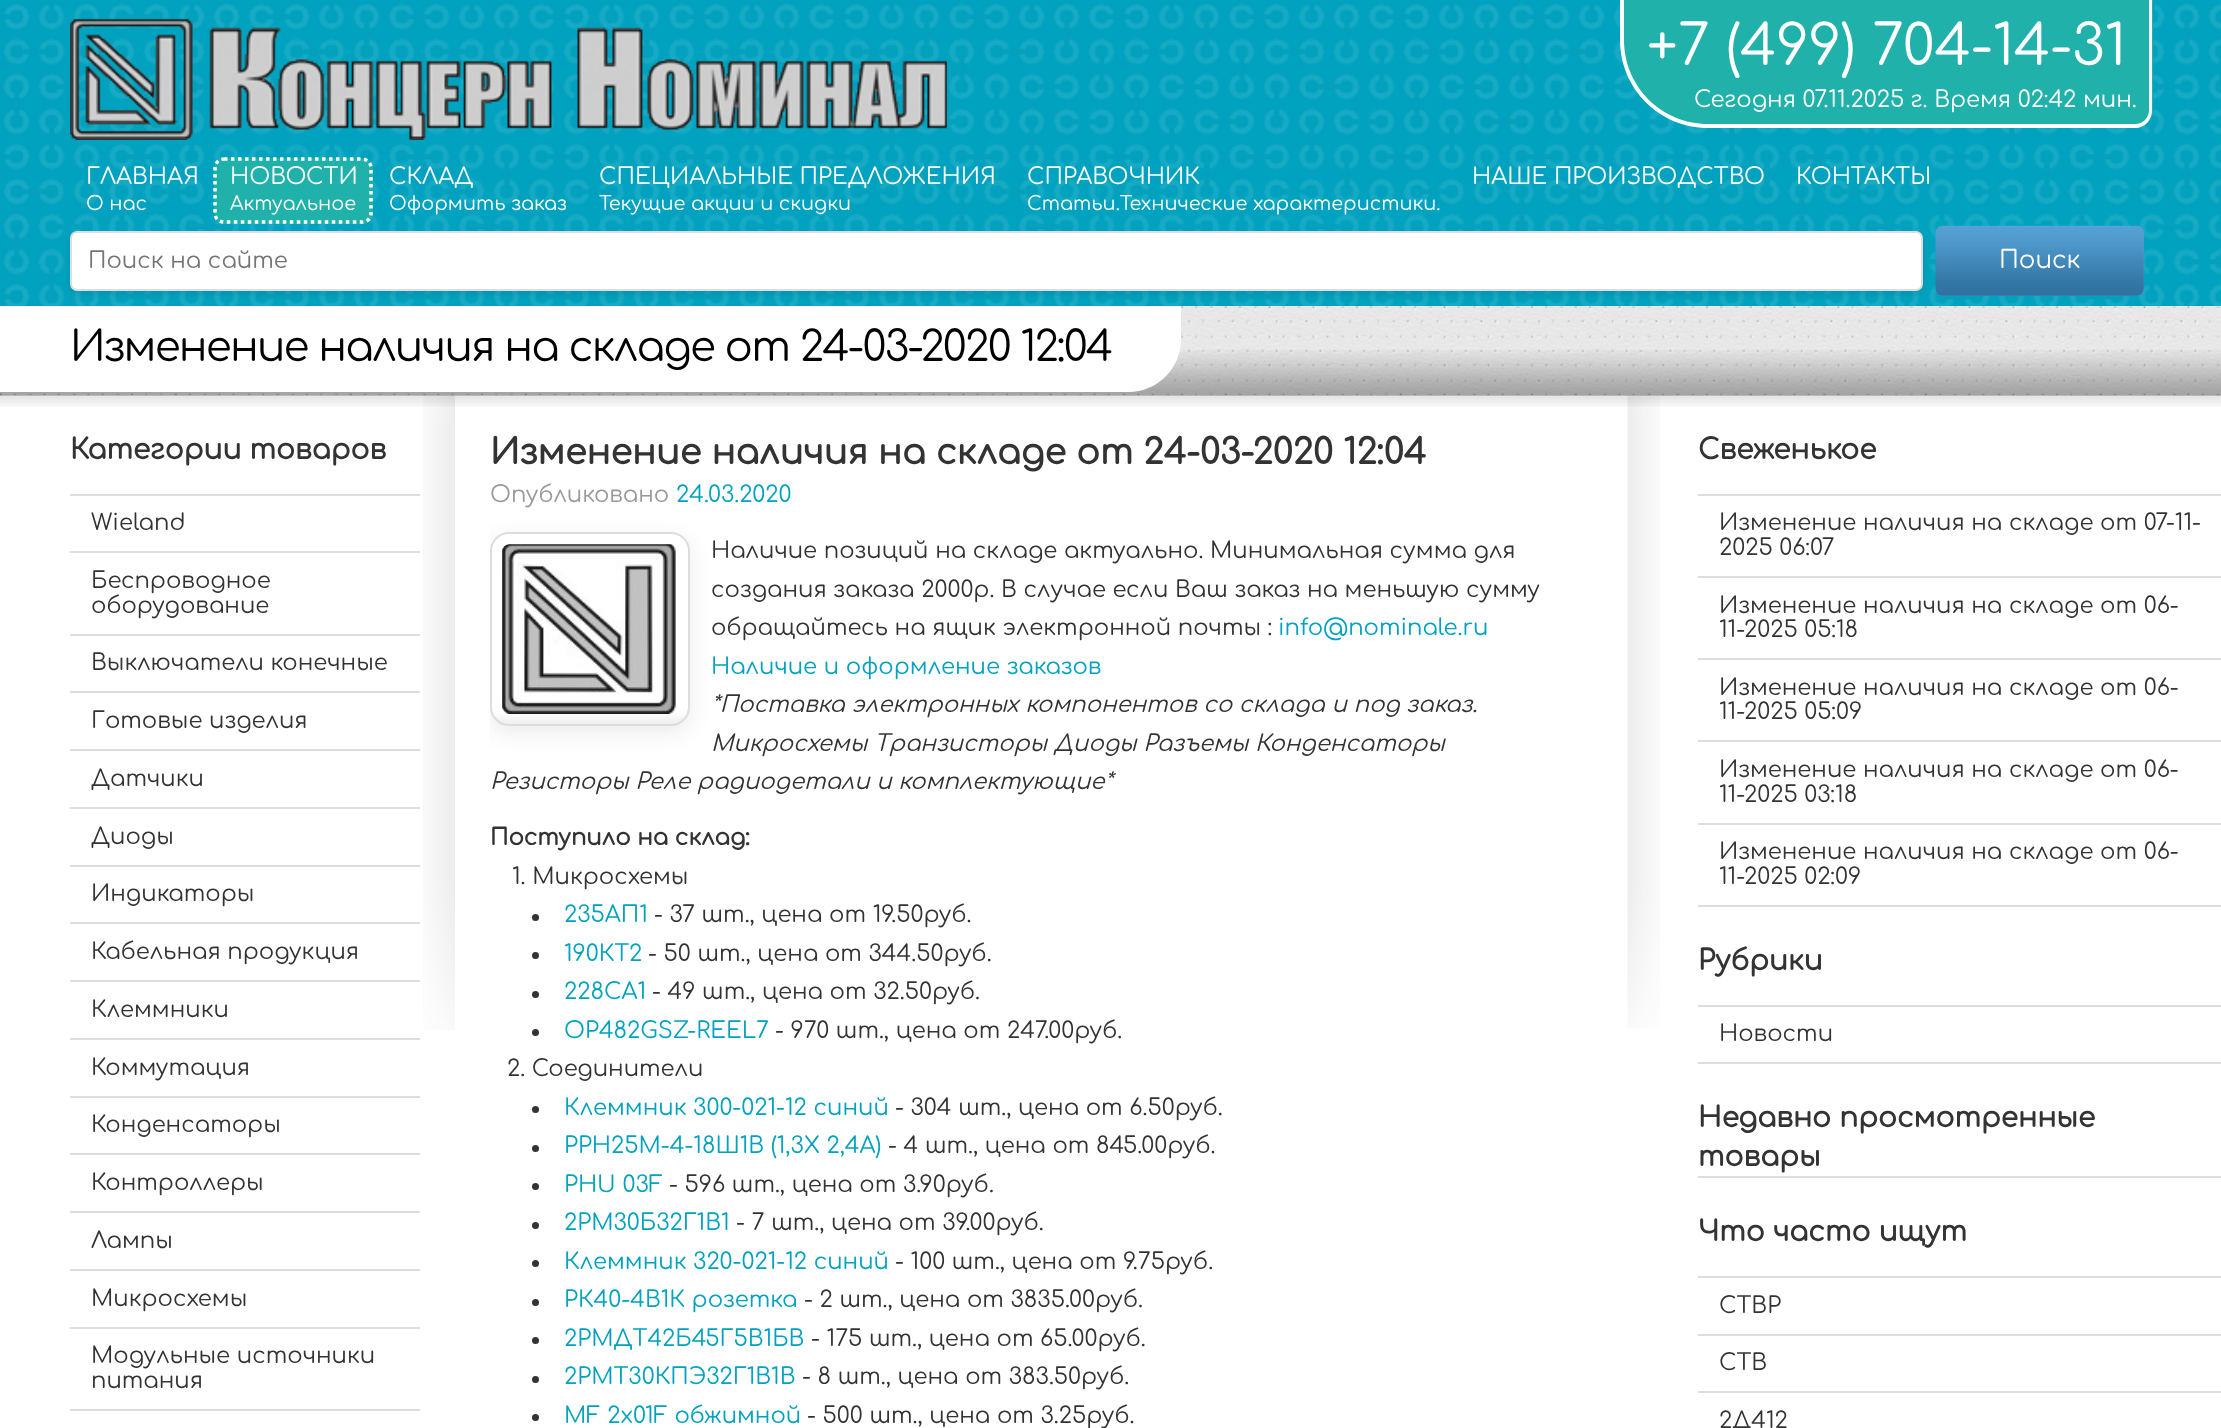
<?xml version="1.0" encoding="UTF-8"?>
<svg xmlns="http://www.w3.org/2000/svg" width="2221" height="1428">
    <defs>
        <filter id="blur1" x="-50%" y="-200%" width="200%" height="500%"><feGaussianBlur stdDeviation="3.5"/></filter>
        <clipPath id="clip1"><rect x="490" y="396" width="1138" height="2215"/></clipPath>
        <filter id="blur2" x="-50%" y="-200%" width="200%" height="500%"><feGaussianBlur stdDeviation="10.5"/></filter>
    </defs>
    <rect width="100%" height="100%" fill="#E0E0E0"/>
    <image x="0" y="306" width="2221" height="90" href="img_04.png"/>
    <rect x="0" y="396" width="2221" height="1032" fill="#FFFFFF"/>
    <image x="423" y="395" width="32" height="635" href="img_07.png"/>
    <image x="1627" y="395" width="33" height="633" href="img_10.png"/>
    <image x="0" y="350" width="2221" height="46" href="img_05.png"/>
    <path d="M 0 305 H 1181 V 339 C 1181 368.5 1157.5 392 1128 392 H 0 Z" fill="#FFFFFF"/>
    <rect x="0" y="0" width="2221" height="306" fill="#00A2BF"/>
    <image x="3" y="3" width="2218" height="303" href="img_01.png"/>
    <image x="70" y="18" width="877" height="122" href="img_02.png"/>
    <path d="M 1621 0 H 2153 V 110 C 2153 120 2145 128 2135 128 H 1709 C 1660.5 128 1621 88.5 1621 40 Z" fill="#20B2AA"/>
    <path d="M 1620 0 H 2152 V 110 C 2152 120 2145 128 2135 128 H 1708 C 1660 128 1620 89 1620 40 Z M 1624 0 H 2149 V 110 C 2149 118 2143 124 2135 124 H 1708 C 1662 124 1624 87 1624 40 Z" fill="#FFFFFF" fill-rule="evenodd"/>
    <text x="1647" y="65" font-family="Comfortaa" font-size="56" fill="#FFFFFF">+7 (499) 704-14-31</text>
    <text x="1694" y="107" font-family="Comfortaa" font-size="22.75" fill="#FFFFFF">Сегодня 07.11.2025 г. Время 02:42 мин.</text>
    <text x="86" y="184" font-family="Comfortaa" font-size="22.75" fill="#FFFFFF">ГЛАВНАЯ</text>
    <text x="86" y="210" font-family="Comfortaa" font-size="19.25" fill="#FFFFFF">О нас</text>
    <rect x="214" y="158" width="159" height="66" rx="11" fill="#20B2AA"/>
    <path d="M 224 159 H 362 C 367 159 371 163 371 168 V 213.5 C 371 218.5 367 222 362 222 H 224 C 219 222 215 218.5 215 213.5 V 168 C 215 163 219 159 224 159 Z" fill="none" stroke="#FFFFFF" stroke-width="3.5" stroke-dasharray="3.5 3.5"/>
    <text x="230" y="184" font-family="Comfortaa" font-size="22.75" fill="#FFFFFF">НОВОСТИ</text>
    <text x="230" y="210" font-family="Comfortaa" font-size="19.25" fill="#FFFFFF">Актуальное</text>
    <text x="389" y="184" font-family="Comfortaa" font-size="22.75" fill="#FFFFFF">СКЛАД</text>
    <text x="389" y="210" font-family="Comfortaa" font-size="19.25" fill="#FFFFFF">Оформить заказ</text>
    <text x="599" y="184" font-family="Comfortaa" font-size="22.75" fill="#FFFFFF">СПЕЦИАЛЬНЫЕ ПРЕДЛОЖЕНИЯ</text>
    <text x="599" y="210" font-family="Comfortaa" font-size="19.25" fill="#FFFFFF">Текущие акции и скидки</text>
    <text x="1027" y="184" font-family="Comfortaa" font-size="22.75" fill="#FFFFFF">СПРАВОЧНИК</text>
    <text x="1027" y="210" font-family="Comfortaa" font-size="19.25" fill="#FFFFFF">Статьи.Технические характеристики.</text>
    <text x="1472" y="184" font-family="Comfortaa" font-size="22.75" fill="#FFFFFF">НАШЕ ПРОИЗВОДСТВО</text>
    <text x="1796" y="184" font-family="Comfortaa" font-size="22.75" fill="#FFFFFF">КОНТАКТЫ</text>
    <rect x="70" y="235" width="1853" height="59" rx="7" fill="#000000" fill-opacity="0.1" filter="url(#blur1)"/>
    <rect x="71" y="232" width="1851" height="58" rx="6" fill="#FFFFFF" stroke="#DDDDDD" stroke-width="2"/>
    <text x="88" y="268" font-family="Comfortaa" font-size="22.75" fill="#757575">Поиск на сайте</text>
    <rect x="1936" y="226" width="208" height="70" rx="7" fill="#539DD0"/>
    <image x="1935" y="225" width="209" height="71" href="img_03.png"/>
    <text x="1999" y="268" font-family="Comfortaa" font-size="24.5" fill="#FFFFFF">Поиск</text>
    <text x="70" y="361" font-family="Comfortaa" font-size="42" letter-spacing="-1.75" fill="#000000">Изменение наличия на складе от 24-03-2020 12:04</text>
    <image x="0" y="395" width="2221" height="12" href="img_06.png"/>
    <text x="70" y="459" font-family="Comfortaa" font-size="28" font-weight="700" fill="#333333">Категории товаров</text>
    <rect x="70" y="494" width="350" height="2" fill="#DDDDDD"/>
    <text x="91" y="530" font-family="Comfortaa" font-size="22.75" fill="#333333">Wieland</text>
    <rect x="70" y="551" width="350" height="2" fill="#DDDDDD"/>
    <text font-family="Comfortaa" font-size="22.75" fill="#333333">
        <tspan x="91" y="588">Беспроводное</tspan>
        <tspan x="91" y="613">оборудование</tspan>
    </text>
    <rect x="70" y="634" width="350" height="2" fill="#DDDDDD"/>
    <text x="91" y="670" font-family="Comfortaa" font-size="22.75" fill="#333333">Выключатели конечные</text>
    <rect x="70" y="691" width="350" height="2" fill="#DDDDDD"/>
    <text x="91" y="728" font-family="Comfortaa" font-size="22.75" fill="#333333">Готовые изделия</text>
    <rect x="70" y="749" width="350" height="2" fill="#DDDDDD"/>
    <text x="91" y="786" font-family="Comfortaa" font-size="22.75" fill="#333333">Датчики</text>
    <rect x="70" y="807" width="350" height="2" fill="#DDDDDD"/>
    <text x="91" y="844" font-family="Comfortaa" font-size="22.75" fill="#333333">Диоды</text>
    <rect x="70" y="865" width="350" height="2" fill="#DDDDDD"/>
    <text x="91" y="901" font-family="Comfortaa" font-size="22.75" fill="#333333">Индикаторы</text>
    <rect x="70" y="922" width="350" height="2" fill="#DDDDDD"/>
    <text x="91" y="959" font-family="Comfortaa" font-size="22.75" fill="#333333">Кабельная продукция</text>
    <rect x="70" y="980" width="350" height="2" fill="#DDDDDD"/>
    <text x="91" y="1017" font-family="Comfortaa" font-size="22.75" fill="#333333">Клеммники</text>
    <rect x="70" y="1038" width="350" height="2" fill="#DDDDDD"/>
    <text x="91" y="1075" font-family="Comfortaa" font-size="22.75" fill="#333333">Коммутация</text>
    <rect x="70" y="1096" width="350" height="2" fill="#DDDDDD"/>
    <text x="91" y="1132" font-family="Comfortaa" font-size="22.75" fill="#333333">Конденсаторы</text>
    <rect x="70" y="1153" width="350" height="2" fill="#DDDDDD"/>
    <text x="91" y="1190" font-family="Comfortaa" font-size="22.75" fill="#333333">Контроллеры</text>
    <rect x="70" y="1211" width="350" height="2" fill="#DDDDDD"/>
    <text x="91" y="1248" font-family="Comfortaa" font-size="22.75" fill="#333333">Лампы</text>
    <rect x="70" y="1269" width="350" height="2" fill="#DDDDDD"/>
    <text x="91" y="1306" font-family="Comfortaa" font-size="22.75" fill="#333333">Микросхемы</text>
    <rect x="70" y="1327" width="350" height="2" fill="#DDDDDD"/>
    <text font-family="Comfortaa" font-size="22.75" fill="#333333">
        <tspan x="91" y="1363">Модульные источники</tspan>
        <tspan x="91" y="1388">питания</tspan>
    </text>
    <rect x="70" y="1409" width="350" height="2" fill="#DDDDDD"/>
    <text x="490" y="464" font-family="Comfortaa" font-size="35" font-weight="700" fill="#333333">Изменение наличия на складе от 24-03-2020 12:04</text>
    <g clip-path="url(#clip1)">
        <rect x="490" y="539" width="200" height="194" rx="19" fill="#000000" fill-opacity="0.08" filter="url(#blur2)"/>
    </g>
    <text x="490" y="502" font-family="Comfortaa" font-size="22.75" fill="#999999">Опубликовано</text>
    <text x="676" y="502" font-family="Comfortaa" font-size="22.75" fill="#00A2BF">24.03.2020</text>
    <rect x="490" y="532" width="200" height="194" rx="19" fill="#FFFFFF"/>
    <image x="493" y="544" width="193" height="180" href="img_08.png"/>
    <rect x="491" y="533" width="198" height="192" rx="18" fill="none" stroke="#DDDDDD" stroke-width="2"/>
    <image x="502" y="544" width="172" height="170" href="img_09.png"/>
    <text font-family="Comfortaa" font-size="22.75" fill="#333333">
        <tspan x="711" y="558">Наличие позиций на складе актуально. Минимальная сумма для</tspan>
        <tspan x="711" y="597">создания заказа 2000р. В случае если Ваш заказ на меньшую сумму</tspan>
        <tspan x="711" y="635">обращайтесь на ящик электронной почты :</tspan>
    </text>
    <text x="1278" y="635" font-family="Comfortaa" font-size="22.75" fill="#00A2BF">info@nominale.ru</text>
    <text x="711" y="674" font-family="Comfortaa" font-size="22.75" fill="#00A2BF">Наличие и оформление заказов</text>
    <text font-family="Comfortaa" font-size="22.75" font-style="italic" fill="#333333">
        <tspan x="711" y="712">*Поставка электронных компонентов со склада и под заказ.</tspan>
        <tspan x="711" y="751">Микросхемы Транзисторы Диоды Разъемы Конденсаторы</tspan>
    </text>
    <text x="490" y="789" font-family="Comfortaa" font-size="22.75" font-style="italic" fill="#333333">Резисторы Реле радиодетали и комплектующие*</text>
    <text x="490" y="845" font-family="Comfortaa" font-size="22.75" font-weight="700" fill="#333333">Поступило на склад:</text>
    <text x="512" y="884" font-family="Comfortaa" font-size="22.75" fill="#333333">1. Микросхемы</text>
    <circle cx="535.5" cy="917.5" r="3.5" fill="#333333"/>
    <text x="564" y="922" font-family="Comfortaa" font-size="22.75" fill="#00A2BF">235АП1</text>
    <text x="654" y="922" font-family="Comfortaa" font-size="22.75" fill="#333333">- 37 шт., цена от 19.50руб.</text>
    <circle cx="535.5" cy="955.5" r="3.5" fill="#333333"/>
    <text x="564" y="961" font-family="Comfortaa" font-size="22.75" fill="#00A2BF">190КТ2</text>
    <text x="648" y="961" font-family="Comfortaa" font-size="22.75" fill="#333333">- 50 шт., цена от 344.50руб.</text>
    <circle cx="535.5" cy="994.5" r="3.5" fill="#333333"/>
    <text x="564" y="999" font-family="Comfortaa" font-size="22.75" fill="#00A2BF">228СА1</text>
    <text x="652" y="999" font-family="Comfortaa" font-size="22.75" fill="#333333">- 49 шт., цена от 32.50руб.</text>
    <circle cx="535.5" cy="1032.5" r="3.5" fill="#333333"/>
    <text x="564" y="1038" font-family="Comfortaa" font-size="22.75" fill="#00A2BF">OP482GSZ-REEL7</text>
    <text x="775" y="1038" font-family="Comfortaa" font-size="22.75" fill="#333333">- 970 шт., цена от 247.00руб.</text>
    <text x="507" y="1076" font-family="Comfortaa" font-size="22.75" fill="#333333">2. Соединители</text>
    <circle cx="535.5" cy="1109.5" r="3.5" fill="#333333"/>
    <text x="564" y="1115" font-family="Comfortaa" font-size="22.75" fill="#00A2BF">Клеммник 300-021-12 синий</text>
    <text x="895" y="1115" font-family="Comfortaa" font-size="22.75" fill="#333333">- 304 шт., цена от 6.50руб.</text>
    <circle cx="535.5" cy="1148.5" r="3.5" fill="#333333"/>
    <text x="564" y="1153" font-family="Comfortaa" font-size="22.75" fill="#00A2BF">РРН25М-4-18Ш1В (1,3Х 2,4А)</text>
    <text x="888" y="1153" font-family="Comfortaa" font-size="22.75" fill="#333333">- 4 шт., цена от 845.00руб.</text>
    <circle cx="535.5" cy="1186.5" r="3.5" fill="#333333"/>
    <text x="564" y="1192" font-family="Comfortaa" font-size="22.75" fill="#00A2BF">PHU 03F</text>
    <text x="669" y="1192" font-family="Comfortaa" font-size="22.75" fill="#333333">- 596 шт., цена от 3.90руб.</text>
    <circle cx="535.5" cy="1225.5" r="3.5" fill="#333333"/>
    <text x="564" y="1230" font-family="Comfortaa" font-size="22.75" fill="#00A2BF">2РМ30Б32Г1В1</text>
    <text x="736" y="1230" font-family="Comfortaa" font-size="22.75" fill="#333333">- 7 шт., цена от 39.00руб.</text>
    <circle cx="535.5" cy="1263.5" r="3.5" fill="#333333"/>
    <text x="564" y="1269" font-family="Comfortaa" font-size="22.75" fill="#00A2BF">Клеммник 320-021-12 синий</text>
    <text x="895" y="1269" font-family="Comfortaa" font-size="22.75" fill="#333333">- 100 шт., цена от 9.75руб.</text>
    <circle cx="535.5" cy="1302.5" r="3.5" fill="#333333"/>
    <text x="564" y="1307" font-family="Comfortaa" font-size="22.75" fill="#00A2BF">РК40-4В1К розетка</text>
    <text x="804" y="1307" font-family="Comfortaa" font-size="22.75" fill="#333333">- 2 шт., цена от 3835.00руб.</text>
    <circle cx="535.5" cy="1340.5" r="3.5" fill="#333333"/>
    <text x="564" y="1346" font-family="Comfortaa" font-size="22.75" fill="#00A2BF">2РМДТ42Б45Г5В1БВ</text>
    <text x="811" y="1346" font-family="Comfortaa" font-size="22.75" fill="#333333">- 175 шт., цена от 65.00руб.</text>
    <circle cx="535.5" cy="1379.5" r="3.5" fill="#333333"/>
    <text x="564" y="1384" font-family="Comfortaa" font-size="22.75" fill="#00A2BF">2РМТ30КПЭ32Г1В1В</text>
    <text x="802" y="1384" font-family="Comfortaa" font-size="22.75" fill="#333333">- 8 шт., цена от 383.50руб.</text>
    <circle cx="535.5" cy="1417.5" r="3.5" fill="#333333"/>
    <text x="564" y="1423" font-family="Comfortaa" font-size="22.75" fill="#00A2BF">MF 2x01F обжимной</text>
    <text x="807" y="1423" font-family="Comfortaa" font-size="22.75" fill="#333333">- 500 шт., цена от 3.25руб.</text>
    <text x="1698" y="459" font-family="Comfortaa" font-size="28" font-weight="700" fill="#333333">Свеженькое</text>
    <rect x="1698" y="905" width="523" height="2" fill="#DDDDDD"/>
    <rect x="1698" y="494" width="523" height="2" fill="#DDDDDD"/>
    <text font-family="Comfortaa" font-size="22.75" fill="#333333">
        <tspan x="1719" y="530">Изменение наличия на складе от 07-11-</tspan>
        <tspan x="1719" y="555">2025 06:07</tspan>
    </text>
    <rect x="1698" y="576" width="523" height="2" fill="#DDDDDD"/>
    <text font-family="Comfortaa" font-size="22.75" fill="#333333">
        <tspan x="1719" y="613">Изменение наличия на складе от 06-</tspan>
        <tspan x="1719" y="637">11-2025 05:18</tspan>
    </text>
    <rect x="1698" y="658" width="523" height="2" fill="#DDDDDD"/>
    <text font-family="Comfortaa" font-size="22.75" fill="#333333">
        <tspan x="1719" y="695">Изменение наличия на складе от 06-</tspan>
        <tspan x="1719" y="719">11-2025 05:09</tspan>
    </text>
    <rect x="1698" y="740" width="523" height="2" fill="#DDDDDD"/>
    <text font-family="Comfortaa" font-size="22.75" fill="#333333">
        <tspan x="1719" y="777">Изменение наличия на складе от 06-</tspan>
        <tspan x="1719" y="802">11-2025 03:18</tspan>
    </text>
    <rect x="1698" y="823" width="523" height="2" fill="#DDDDDD"/>
    <text font-family="Comfortaa" font-size="22.75" fill="#333333">
        <tspan x="1719" y="859">Изменение наличия на складе от 06-</tspan>
        <tspan x="1719" y="884">11-2025 02:09</tspan>
    </text>
    <text x="1698" y="970" font-family="Comfortaa" font-size="28" font-weight="700" fill="#333333">Рубрики</text>
    <rect x="1698" y="1062" width="523" height="2" fill="#DDDDDD"/>
    <rect x="1698" y="1005" width="523" height="2" fill="#DDDDDD"/>
    <text x="1719" y="1041" font-family="Comfortaa" font-size="22.75" fill="#333333">Новости</text>
    <text font-family="Comfortaa" font-size="28" font-weight="700" fill="#333333">
        <tspan x="1698" y="1127">Недавно просмотренные</tspan>
        <tspan x="1698" y="1166">товары</tspan>
    </text>
    <rect x="1698" y="1176" width="523" height="2" fill="#DDDDDD"/>
    <text x="1698" y="1241" font-family="Comfortaa" font-size="28" font-weight="700" fill="#333333">Что часто ищут</text>
    <rect x="1698" y="1276" width="523" height="2" fill="#DDDDDD"/>
    <text x="1719" y="1313" font-family="Comfortaa" font-size="22.75" fill="#333333">СТВР</text>
    <rect x="1698" y="1334" width="523" height="2" fill="#DDDDDD"/>
    <text x="1719" y="1370" font-family="Comfortaa" font-size="22.75" fill="#333333">СТВ</text>
    <rect x="1698" y="1391" width="523" height="2" fill="#DDDDDD"/>
    <text x="1719" y="1428" font-family="Comfortaa" font-size="22.75" fill="#333333">2Д412</text>
</svg>
